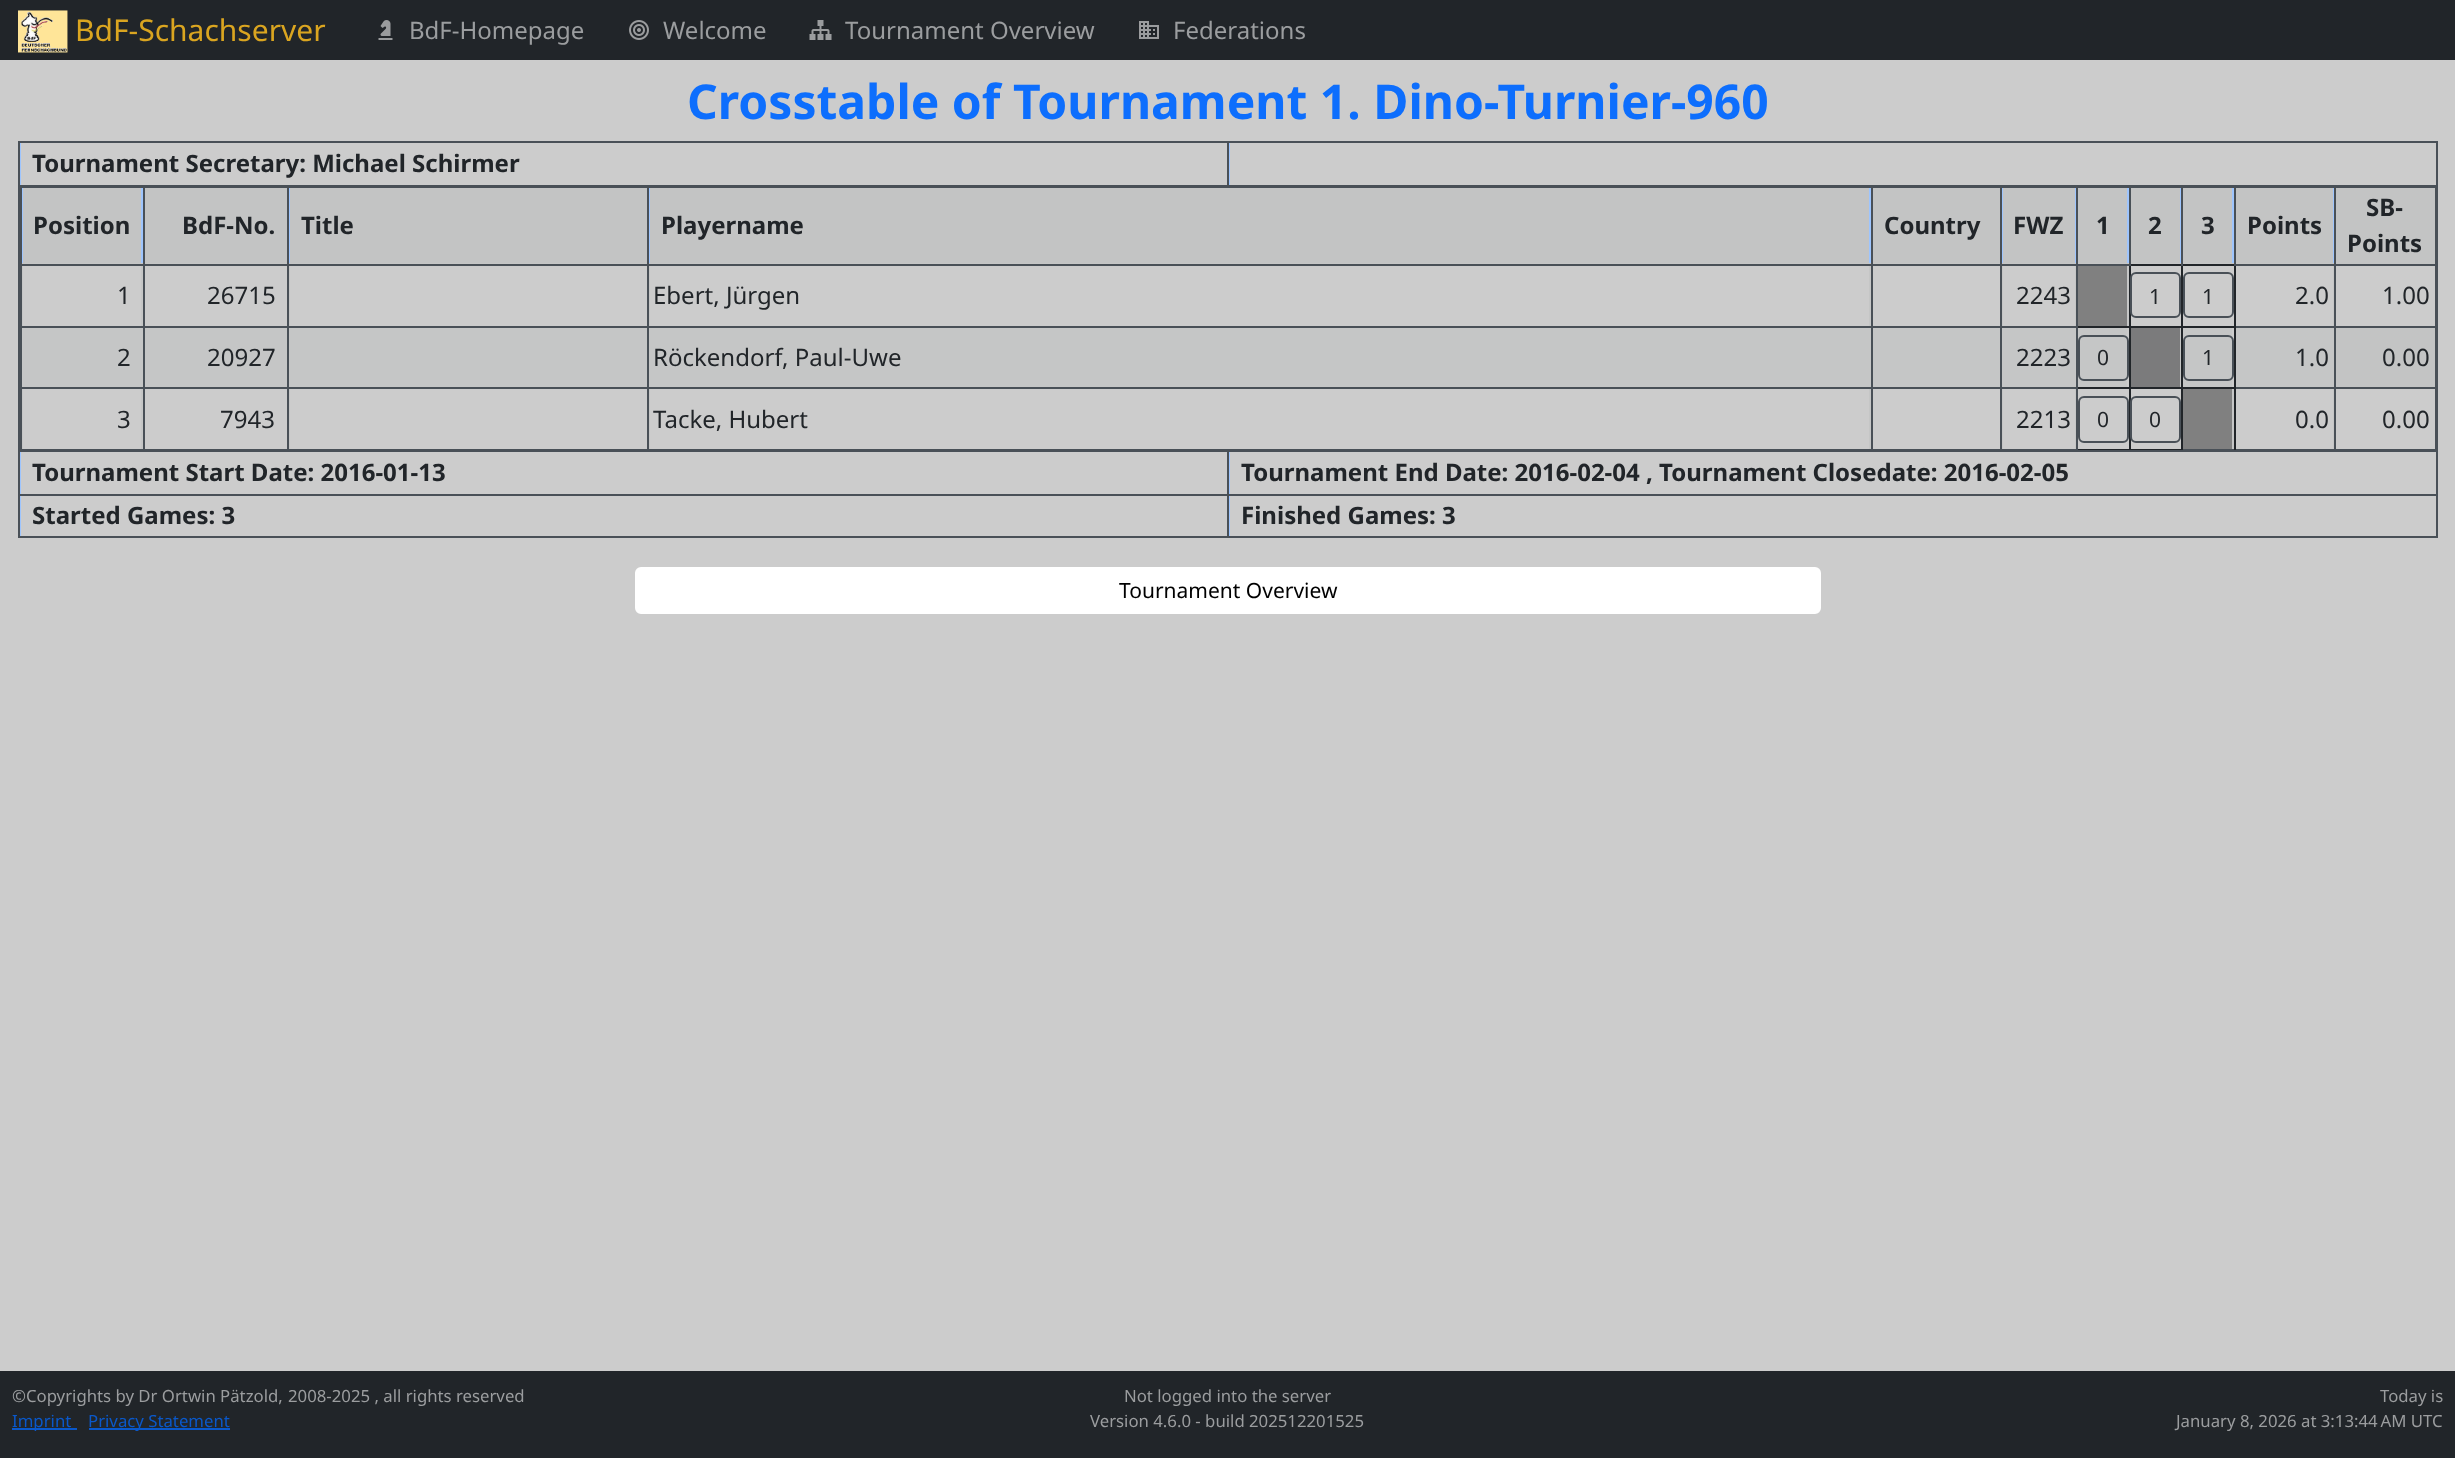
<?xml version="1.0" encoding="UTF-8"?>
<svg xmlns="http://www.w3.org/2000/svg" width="2455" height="1458">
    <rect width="100%" height="100%" fill="#CCCCCC"/>
    <rect x="0" y="0" width="2455" height="60" fill="#212529"/>
    <image x="18" y="10" width="50" height="43" href="img_01.png"/>
    <text x="75" y="41" font-family="Noto Sans" font-size="30" fill="#DAA520">BdF-Schachserver</text>
    <image x="378" y="20" width="15" height="20" href="img_02.png"/>
    <text x="409" y="39" font-family="Noto Sans" font-size="24" fill="#9B9D9F">BdF-Homepage</text>
    <image x="629" y="20" width="20" height="20" href="img_03.png"/>
    <text x="663" y="39" font-family="Noto Sans" font-size="24" fill="#9B9D9F">Welcome</text>
    <image x="809" y="20" width="23" height="20" href="img_04.png"/>
    <text x="845" y="39" font-family="Noto Sans" font-size="24" fill="#9B9D9F">Tournament Overview</text>
    <image x="1139" y="21" width="20" height="18" href="img_05.png"/>
    <text x="1173" y="39" font-family="Noto Sans" font-size="24" fill="#9B9D9F">Federations</text>
    <text x="687" y="119" font-family="Noto Sans" font-size="48" font-weight="700" fill="#0D6EFD">Crosstable of Tournament 1. Dino-Turnier-960</text>
    <rect x="20" y="143" width="1210" height="42" fill="#9EC5FE"/>
    <rect x="18" y="141" width="2420" height="2" fill="#495057"/>
    <rect x="21" y="143" width="1206" height="42" fill="#CCCCCC"/>
    <text x="32" y="172" font-family="Noto Sans" font-size="24" font-weight="700" fill="#212529">Tournament Secretary: Michael Schirmer</text>
    <rect x="22" y="263" width="2312" height="186" fill="#C5C6C6"/>
    <rect x="22" y="188" width="2312" height="75" fill="#9EC5FE"/>
    <rect x="20" y="187" width="2416" height="1" fill="#495057"/>
    <rect x="20" y="264" width="2416" height="2" fill="#495057"/>
    <rect x="2181" y="264" width="54" height="2" fill="#212529"/>
    <rect x="20" y="326" width="2416" height="2" fill="#495057"/>
    <rect x="2181" y="326" width="54" height="2" fill="#212529"/>
    <rect x="20" y="387" width="2416" height="2" fill="#495057"/>
    <rect x="20" y="449" width="2416" height="1" fill="#495057"/>
    <rect x="2234" y="387" width="2" height="63" fill="#212529"/>
    <rect x="2234" y="326" width="2" height="63" fill="#212529"/>
    <rect x="2181" y="387" width="2" height="63" fill="#212529"/>
    <rect x="2129" y="387" width="54" height="2" fill="#212529"/>
    <rect x="2181" y="387" width="54" height="2" fill="#212529"/>
    <rect x="2181" y="326" width="2" height="63" fill="#212529"/>
    <rect x="2181" y="264" width="2" height="63" fill="#212529"/>
    <rect x="2129" y="264" width="54" height="2" fill="#212529"/>
    <rect x="2129" y="449" width="54" height="1" fill="#212529"/>
    <rect x="2129" y="326" width="2" height="124" fill="#212529"/>
    <rect x="2076" y="326" width="54" height="2" fill="#212529"/>
    <rect x="2129" y="326" width="54" height="2" fill="#212529"/>
    <rect x="2129" y="264" width="2" height="63" fill="#212529"/>
    <rect x="2129" y="186" width="2" height="80" fill="#495057"/>
    <rect x="2181" y="186" width="2" height="80" fill="#495057"/>
    <rect x="2234" y="264" width="2" height="63" fill="#212529"/>
    <rect x="2234" y="186" width="2" height="80" fill="#495057"/>
    <rect x="2076" y="449" width="54" height="1" fill="#212529"/>
    <rect x="2076" y="387" width="2" height="63" fill="#495057"/>
    <rect x="2076" y="387" width="54" height="2" fill="#212529"/>
    <rect x="2076" y="186" width="2" height="203" fill="#495057"/>
    <rect x="20" y="186" width="2" height="264" fill="#495057"/>
    <rect x="143" y="186" width="2" height="264" fill="#495057"/>
    <rect x="287" y="186" width="2" height="264" fill="#495057"/>
    <rect x="647" y="186" width="2" height="264" fill="#495057"/>
    <rect x="1871" y="186" width="2" height="264" fill="#495057"/>
    <rect x="2000" y="186" width="2" height="264" fill="#495057"/>
    <rect x="2435" y="186" width="1" height="264" fill="#495057"/>
    <rect x="2334" y="186" width="2" height="264" fill="#495057"/>
    <rect x="18" y="185" width="2420" height="2" fill="#495057"/>
    <rect x="1227" y="141" width="2" height="45" fill="#495057"/>
    <rect x="23" y="188" width="118" height="75" fill="#C3C4C4"/>
    <text x="33" y="234" font-family="Noto Sans" font-size="24" font-weight="700" fill="#212529">Position</text>
    <rect x="145" y="188" width="142" height="75" fill="#C3C4C4"/>
    <text x="182" y="234" font-family="Noto Sans" font-size="24" font-weight="700" fill="#212529">BdF-No.</text>
    <rect x="290" y="188" width="357" height="75" fill="#C3C4C4"/>
    <text x="301" y="234" font-family="Noto Sans" font-size="24" font-weight="700" fill="#212529">Title</text>
    <rect x="650" y="188" width="1219" height="75" fill="#C3C4C4"/>
    <text x="661" y="234" font-family="Noto Sans" font-size="24" font-weight="700" fill="#212529">Playername</text>
    <rect x="1873" y="188" width="127" height="75" fill="#C3C4C4"/>
    <text x="1884" y="234" font-family="Noto Sans" font-size="24" font-weight="700" fill="#212529">Country</text>
    <rect x="2003" y="188" width="72" height="75" fill="#C3C4C4"/>
    <text x="2013" y="234" font-family="Noto Sans" font-size="24" font-weight="700" fill="#212529">FWZ</text>
    <rect x="2078" y="188" width="49" height="75" fill="#C3C4C4"/>
    <text x="2096" y="234" font-family="Noto Sans" font-size="24" font-weight="700" fill="#212529">1</text>
    <rect x="2131" y="188" width="49" height="75" fill="#C3C4C4"/>
    <text x="2148" y="234" font-family="Noto Sans" font-size="24" font-weight="700" fill="#212529">2</text>
    <rect x="2183" y="188" width="49" height="75" fill="#C3C4C4"/>
    <text x="2201" y="234" font-family="Noto Sans" font-size="24" font-weight="700" fill="#212529">3</text>
    <rect x="2236" y="188" width="97" height="75" fill="#C3C4C4"/>
    <text x="2247" y="234" font-family="Noto Sans" font-size="24" font-weight="700" fill="#212529">Points</text>
    <rect x="2336" y="188" width="99" height="76" fill="#C3C4C4"/>
    <text x="2366" y="216" font-family="Noto Sans" font-size="24" font-weight="700" fill="#212529">SB-</text>
    <text x="2347" y="252" font-family="Noto Sans" font-size="24" font-weight="700" fill="#212529">Points</text>
    <rect x="23" y="266" width="118" height="60" fill="#CCCCCC"/>
    <text x="117" y="304" font-family="Noto Sans" font-size="24" fill="#212529">1</text>
    <rect x="145" y="266" width="142" height="60" fill="#CCCCCC"/>
    <text x="207" y="304" font-family="Noto Sans" font-size="24" fill="#212529">26715</text>
    <rect x="290" y="266" width="357" height="60" fill="#CCCCCC"/>
    <rect x="650" y="266" width="1219" height="60" fill="#CCCCCC"/>
    <text x="653" y="304" font-family="Noto Sans" font-size="24" fill="#212529">Ebert, Jürgen</text>
    <rect x="1873" y="266" width="127" height="60" fill="#CCCCCC"/>
    <rect x="2003" y="266" width="72" height="60" fill="#CCCCCC"/>
    <text x="2016" y="304" font-family="Noto Sans" font-size="24" fill="#212529">2243</text>
    <rect x="2078" y="266" width="49" height="60" fill="#808080"/>
    <rect x="2131" y="266" width="50" height="60" fill="#CCCCCC"/>
    <rect x="2131" y="273" width="49" height="44" rx="5" fill="none" stroke="#495057" stroke-width="2"/>
    <text x="2149" y="304" font-family="Noto Sans" font-size="21" fill="#212529">1</text>
    <rect x="2183" y="266" width="51" height="60" fill="#CCCCCC"/>
    <rect x="2184" y="273" width="49" height="44" rx="5" fill="none" stroke="#495057" stroke-width="2"/>
    <text x="2202" y="304" font-family="Noto Sans" font-size="21" fill="#212529">1</text>
    <rect x="2236" y="266" width="97" height="60" fill="#CCCCCC"/>
    <text x="2295" y="304" font-family="Noto Sans" font-size="24" fill="#212529">2.0</text>
    <text x="2382" y="304" font-family="Noto Sans" font-size="24" fill="#212529">1.00</text>
    <text x="117" y="366" font-family="Noto Sans" font-size="24" fill="#212529">2</text>
    <text x="207" y="366" font-family="Noto Sans" font-size="24" fill="#212529">20927</text>
    <text x="653" y="366" font-family="Noto Sans" font-size="24" fill="#212529">Röckendorf, Paul-Uwe</text>
    <text x="2016" y="366" font-family="Noto Sans" font-size="24" fill="#212529">2223</text>
    <rect x="2127" y="328" width="2" height="59" fill="#CCCCCC"/>
    <rect x="2079" y="336" width="49" height="44" rx="5" fill="none" stroke="#495057" stroke-width="2"/>
    <text x="2097" y="365" font-family="Noto Sans" font-size="21" fill="#212529">0</text>
    <rect x="2131" y="328" width="49" height="59" fill="#7B7B7C"/>
    <rect x="2232" y="328" width="2" height="59" fill="#CCCCCC"/>
    <rect x="2184" y="336" width="49" height="44" rx="5" fill="none" stroke="#495057" stroke-width="2"/>
    <text x="2202" y="365" font-family="Noto Sans" font-size="21" fill="#212529">1</text>
    <text x="2295" y="366" font-family="Noto Sans" font-size="24" fill="#212529">1.0</text>
    <rect x="2336" y="328" width="99" height="59" fill="#C3C4C4"/>
    <text x="2382" y="366" font-family="Noto Sans" font-size="24" fill="#212529">0.00</text>
    <rect x="23" y="389" width="118" height="60" fill="#CCCCCC"/>
    <text x="117" y="428" font-family="Noto Sans" font-size="24" fill="#212529">3</text>
    <rect x="145" y="389" width="142" height="60" fill="#CCCCCC"/>
    <text x="220" y="428" font-family="Noto Sans" font-size="24" fill="#212529">7943</text>
    <rect x="290" y="389" width="357" height="60" fill="#CCCCCC"/>
    <rect x="650" y="389" width="1219" height="60" fill="#CCCCCC"/>
    <text x="653" y="428" font-family="Noto Sans" font-size="24" fill="#212529">Tacke, Hubert</text>
    <rect x="1873" y="389" width="127" height="60" fill="#CCCCCC"/>
    <rect x="2003" y="389" width="72" height="60" fill="#CCCCCC"/>
    <text x="2016" y="428" font-family="Noto Sans" font-size="24" fill="#212529">2213</text>
    <rect x="2078" y="389" width="51" height="60" fill="#CCCCCC"/>
    <rect x="2079" y="397" width="49" height="45" rx="5" fill="none" stroke="#495057" stroke-width="2"/>
    <text x="2097" y="427" font-family="Noto Sans" font-size="21" fill="#212529">0</text>
    <rect x="2131" y="389" width="50" height="60" fill="#CCCCCC"/>
    <rect x="2131" y="397" width="49" height="45" rx="5" fill="none" stroke="#495057" stroke-width="2"/>
    <text x="2149" y="427" font-family="Noto Sans" font-size="21" fill="#212529">0</text>
    <rect x="2183" y="389" width="49" height="60" fill="#808080"/>
    <rect x="2236" y="389" width="97" height="60" fill="#CCCCCC"/>
    <text x="2295" y="428" font-family="Noto Sans" font-size="24" fill="#212529">0.0</text>
    <text x="2382" y="428" font-family="Noto Sans" font-size="24" fill="#212529">0.00</text>
    <rect x="20" y="452" width="1210" height="84" fill="#9EC5FE"/>
    <rect x="18" y="450" width="2420" height="2" fill="#495057"/>
    <rect x="21" y="452" width="1206" height="42" fill="#CCCCCC"/>
    <text x="32" y="481" font-family="Noto Sans" font-size="24" font-weight="700" fill="#212529">Tournament Start Date: 2016-01-13</text>
    <text x="1241" y="481" font-family="Noto Sans" font-size="24" font-weight="700" fill="#212529">Tournament End Date: 2016-02-04 , Tournament Closedate: 2016-02-05</text>
    <rect x="18" y="494" width="2420" height="2" fill="#495057"/>
    <rect x="18" y="536" width="2420" height="2" fill="#495057"/>
    <rect x="21" y="496" width="1206" height="40" fill="#CCCCCC"/>
    <rect x="18" y="141" width="2" height="396" fill="#495057"/>
    <text x="32" y="524" font-family="Noto Sans" font-size="24" font-weight="700" fill="#212529">Started Games: 3</text>
    <rect x="2436" y="141" width="2" height="396" fill="#495057"/>
    <rect x="1227" y="450" width="2" height="87" fill="#495057"/>
    <text x="1241" y="524" font-family="Noto Sans" font-size="24" font-weight="700" fill="#212529">Finished Games: 3</text>
    <rect x="636" y="568" width="1184" height="45" rx="5" fill="#FFFFFF" stroke="#FFFFFF" stroke-width="2"/>
    <text x="1119" y="598" font-family="Noto Sans" font-size="21" fill="#000000">Tournament Overview</text>
    <rect x="0" y="1371" width="2455" height="87" fill="#212529"/>
    <text x="12" y="1402" font-family="Noto Sans" font-size="16.75" fill="#9B9D9F">©Copyrights by Dr Ortwin Pätzold,</text>
    <text x="288" y="1402" font-family="Noto Sans" font-size="16.75" fill="#9B9D9F">2008-2025 , all rights reserved</text>
    <rect x="12" y="1428" width="65" height="2" fill="#0A58CA"/>
    <text x="12" y="1427" font-family="Noto Sans" font-size="16.75" fill="#0A58CA">Imprint</text>
    <rect x="89" y="1428" width="141" height="2" fill="#0A58CA"/>
    <text x="88" y="1427" font-family="Noto Sans" font-size="16.75" fill="#0A58CA">Privacy Statement</text>
    <text x="1124" y="1402" font-family="Noto Sans" font-size="16.75" fill="#9B9D9F">Not logged into the server</text>
    <text x="1090" y="1427" font-family="Noto Sans" font-size="16.75" fill="#9B9D9F">Version 4.6.0 - build 202512201525</text>
    <text x="2380" y="1402" font-family="Noto Sans" font-size="16.75" fill="#9B9D9F">Today is</text>
    <text x="2176" y="1427" font-family="Noto Sans" font-size="16.75" fill="#9B9D9F">January 8, 2026 at 3:13:44 AM UTC</text>
</svg>
